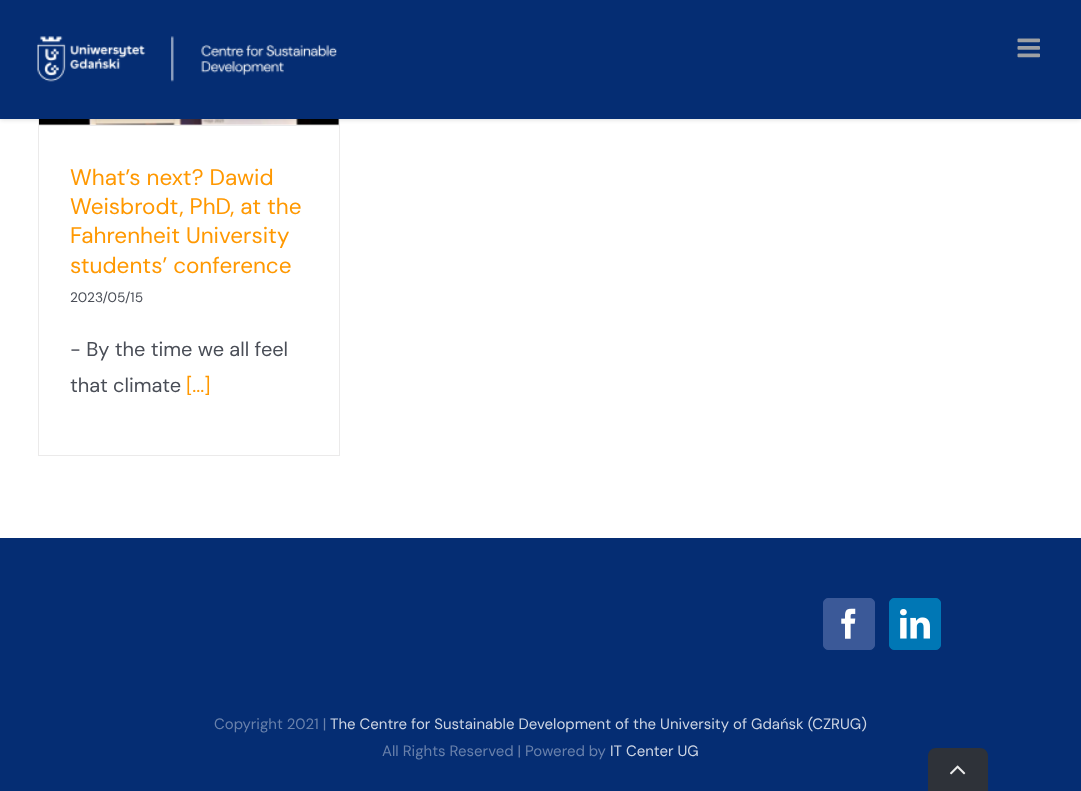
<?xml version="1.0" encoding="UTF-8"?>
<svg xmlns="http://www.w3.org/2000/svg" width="1081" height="791">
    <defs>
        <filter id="blur1" x="-50%" y="-200%" width="200%" height="500%"><feGaussianBlur stdDeviation="2"/></filter>
    </defs>
    <rect width="100%" height="100%" fill="#FFFFFF"/>
    <rect x="38.5" y="-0.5" width="301" height="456" fill="none" stroke="#EBEAEA"/>
    <rect x="39" y="125" width="300" height="1" fill="#EBEAEA"/>
    <image x="39" y="119" width="300" height="6" href="img_03.png"/>
    <rect x="0" y="1" width="1081" height="119" fill="#000000" fill-opacity="0.12" filter="url(#blur1)"/>
    <rect x="0" y="0" width="1081" height="119" fill="#052D73"/>
    <image x="37" y="36" width="300" height="46" href="img_01.png"/>
    <image x="1017" y="38" width="23" height="20" href="img_02.png"/>
    <text font-family="DM Sans" font-size="22.5" fill="#FF9800">
        <tspan x="70" y="185">What’s next? Dawid</tspan>
        <tspan x="70" y="214">Weisbrodt, PhD, at the</tspan>
        <tspan x="70" y="243">Fahrenheit University</tspan>
        <tspan x="70" y="273">students’ conference</tspan>
    </text>
    <text x="70" y="302" font-family="DM Sans" font-size="13.75" fill="#4A4E57">2023/05/15</text>
    <text font-family="DM Sans" font-size="20" fill="#4A4E57">
        <tspan x="70" y="356">- By the time we all feel</tspan>
        <tspan x="70" y="392">that climate</tspan>
    </text>
    <text x="186" y="392" font-family="DM Sans" font-size="20" fill="#FF9800">[...]</text>
    <rect x="0" y="538" width="1081" height="253" fill="#052D73"/>
    <rect x="823.5" y="598.5" width="51" height="51" rx="4.5" fill="#3B5998" stroke="#3B5998"/>
    <image x="841" y="608" width="15" height="31" href="img_04.png"/>
    <rect x="889.5" y="598.5" width="51" height="51" rx="4.5" fill="#0077B5" stroke="#0077B5"/>
    <image x="900" y="609" width="30" height="30" href="img_05.png"/>
    <text x="214" y="729" font-family="DM Sans" font-size="15" fill="#6981AB">Copyright 2021 |</text>
    <text x="330" y="729" font-family="DM Sans" font-size="15" fill="#CDD5E3">The Centre for Sustainable Development of the University of Gdańsk (CZRUG)</text>
    <text x="382" y="756" font-family="DM Sans" font-size="15" fill="#6981AB">All Rights Reserved | Powered by</text>
    <text x="610" y="756" font-family="DM Sans" font-size="15" fill="#CDD5E3">IT Center UG</text>
    <path d="M 936 748 H 980 C 984.5 748 988 751.5 988 756 V 791 H 928 V 756 C 928 751.5 931.5 748 936 748 Z" fill="#2E3239"/>
    <image x="950" y="765" width="16" height="10" href="img_06.png"/>
</svg>
